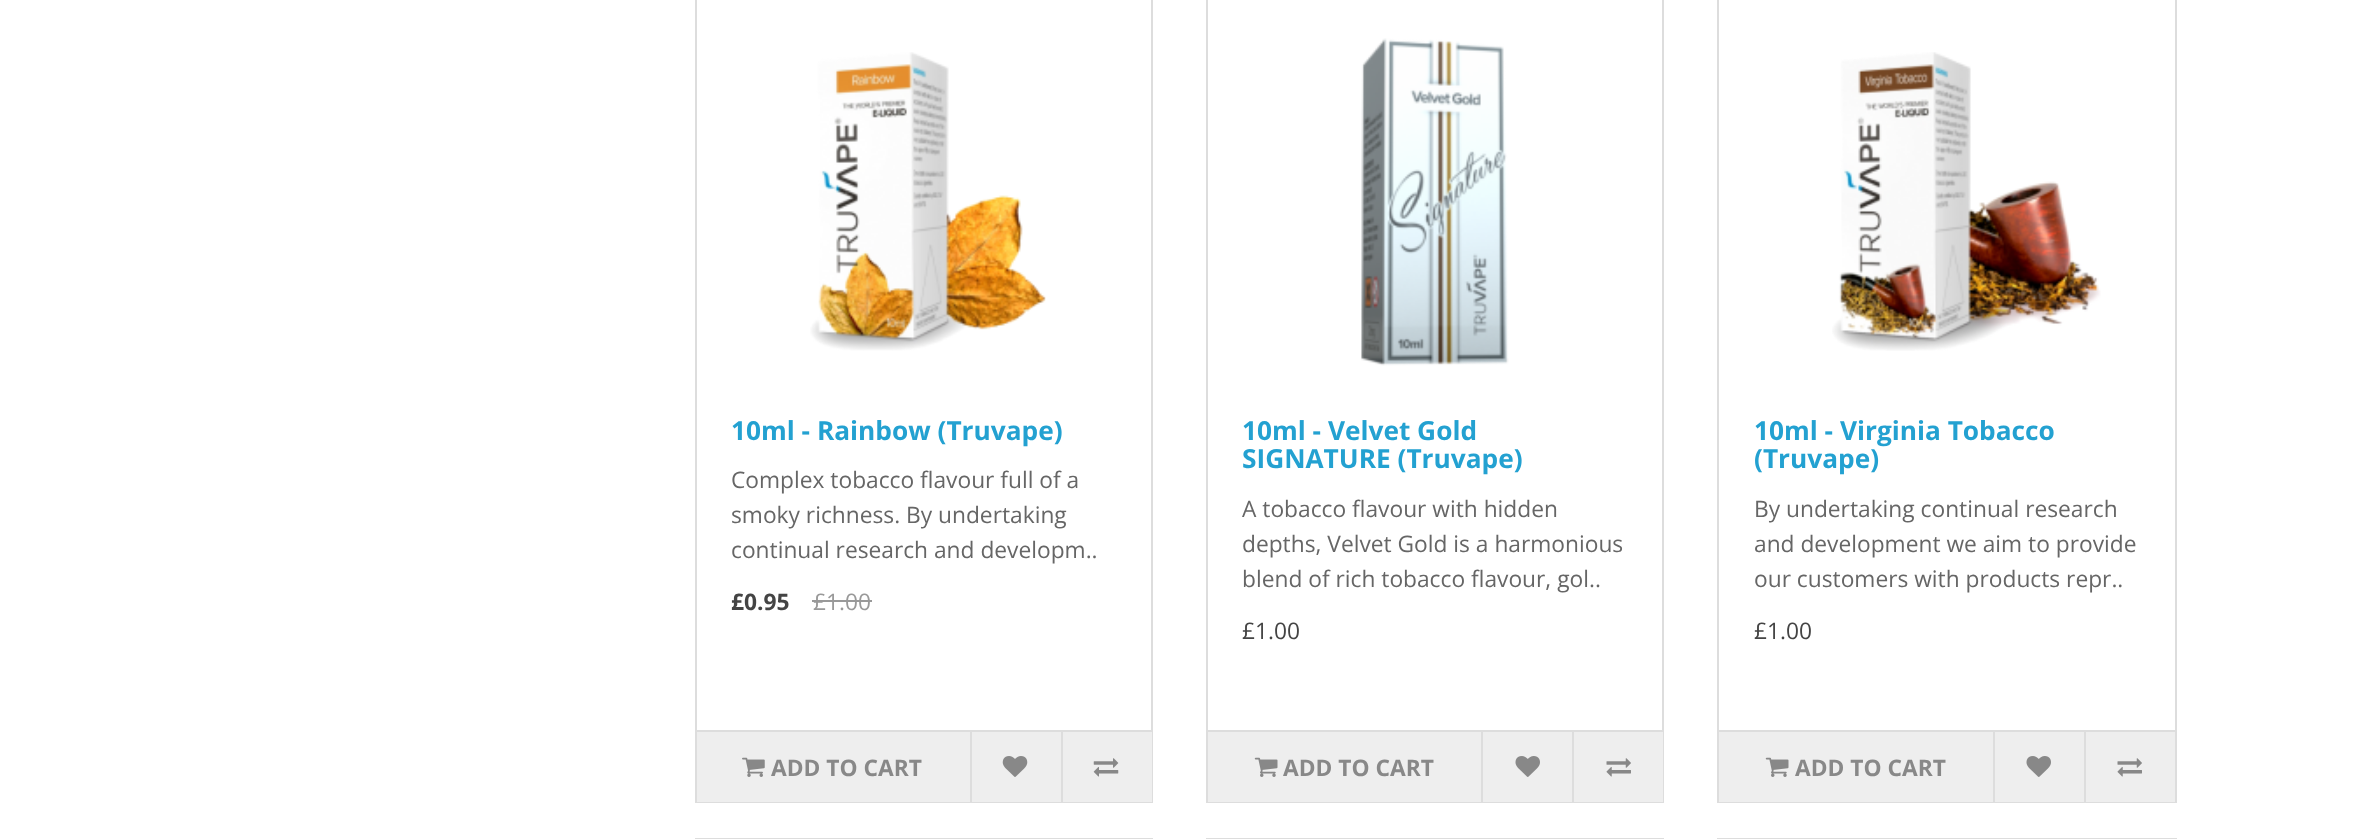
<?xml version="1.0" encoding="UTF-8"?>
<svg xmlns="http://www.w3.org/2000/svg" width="2358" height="839">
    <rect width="100%" height="100%" fill="#FFFFFF"/>
    <rect x="696" y="-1" width="456" height="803" fill="none" stroke="#DDDDDD" stroke-width="2"/>
    <image x="810" y="52" width="236" height="299" href="img_01.png"/>
    <text x="731" y="440" font-family="Open Sans" font-size="26.25" font-weight="700" fill="#23A1D1">10ml - Rainbow (Truvape)</text>
    <text font-family="Open Sans" font-size="22.75" fill="#666666">
        <tspan x="731" y="488">Complex tobacco flavour full of a</tspan>
        <tspan x="731" y="523">smoky richness. By undertaking</tspan>
        <tspan x="731" y="558">continual research and developm..</tspan>
    </text>
    <text x="731" y="610" font-family="Open Sans" font-size="22.75" font-weight="700" fill="#444444">£0.95</text>
    <text x="813" y="610" font-family="Open Sans" font-size="22.75" fill="#999999">£1.00</text>
    <rect x="812" y="600" width="60" height="2" fill="#999999"/>
    <rect x="697" y="732" width="455" height="70" fill="#EEEEEE"/>
    <rect x="697" y="730" width="455" height="2" fill="#DDDDDD"/>
    <image x="742" y="757" width="23" height="20" href="img_02.png"/>
    <text x="771" y="776" font-family="Open Sans" font-size="22.75" font-weight="700" fill="#888888">ADD TO CART</text>
    <rect x="970" y="732" width="2" height="70" fill="#DDDDDD"/>
    <image x="1002" y="756" width="26" height="21" href="img_03.png"/>
    <rect x="1061" y="732" width="2" height="70" fill="#DDDDDD"/>
    <image x="1093" y="758" width="26" height="19" href="img_04.png"/>
    <rect x="1207" y="-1" width="456" height="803" fill="none" stroke="#DDDDDD" stroke-width="2"/>
    <image x="1361" y="38" width="148" height="328" href="img_05.png"/>
    <text font-family="Open Sans" font-size="26.25" font-weight="700" fill="#23A1D1">
        <tspan x="1242" y="440">10ml - Velvet Gold</tspan>
        <tspan x="1242" y="468">SIGNATURE (Truvape)</tspan>
    </text>
    <text font-family="Open Sans" font-size="22.75" fill="#666666">
        <tspan x="1242" y="517">A tobacco flavour with hidden</tspan>
        <tspan x="1242" y="552">depths, Velvet Gold is a harmonious</tspan>
        <tspan x="1242" y="587">blend of rich tobacco flavour, gol..</tspan>
    </text>
    <text x="1242" y="639" font-family="Open Sans" font-size="22.75" fill="#444444">£1.00</text>
    <rect x="1208" y="732" width="455" height="70" fill="#EEEEEE"/>
    <rect x="1208" y="730" width="455" height="2" fill="#DDDDDD"/>
    <image x="1254" y="757" width="24" height="20" href="img_06.png"/>
    <text x="1283" y="776" font-family="Open Sans" font-size="22.75" font-weight="700" fill="#888888">ADD TO CART</text>
    <rect x="1481" y="732" width="2" height="70" fill="#DDDDDD"/>
    <image x="1515" y="756" width="25" height="21" href="img_07.png"/>
    <rect x="1572" y="732" width="2" height="70" fill="#DDDDDD"/>
    <image x="1606" y="758" width="25" height="19" href="img_08.png"/>
    <rect x="1718" y="-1" width="458" height="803" fill="none" stroke="#DDDDDD" stroke-width="2"/>
    <image x="1832" y="52" width="269" height="299" href="img_09.png"/>
    <text font-family="Open Sans" font-size="26.25" font-weight="700" fill="#23A1D1">
        <tspan x="1754" y="440">10ml - Virginia Tobacco</tspan>
        <tspan x="1754" y="468">(Truvape)</tspan>
    </text>
    <text font-family="Open Sans" font-size="22.75" fill="#666666">
        <tspan x="1754" y="517">By undertaking continual research</tspan>
        <tspan x="1754" y="552">and development we aim to provide</tspan>
        <tspan x="1754" y="587">our customers with products repr..</tspan>
    </text>
    <text x="1754" y="639" font-family="Open Sans" font-size="22.75" fill="#444444">£1.00</text>
    <rect x="1719" y="732" width="456" height="70" fill="#EEEEEE"/>
    <rect x="1719" y="730" width="456" height="2" fill="#DDDDDD"/>
    <image x="1765" y="757" width="24" height="20" href="img_06.png"/>
    <text x="1795" y="776" font-family="Open Sans" font-size="22.75" font-weight="700" fill="#888888">ADD TO CART</text>
    <rect x="1993" y="732" width="2" height="70" fill="#DDDDDD"/>
    <image x="2026" y="756" width="25" height="21" href="img_07.png"/>
    <rect x="2084" y="732" width="2" height="70" fill="#DDDDDD"/>
    <image x="2117" y="758" width="25" height="19" href="img_08.png"/>
    <rect x="696" y="839" width="456" height="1" fill="none" stroke="#DDDDDD" stroke-width="2"/>
    <rect x="1207" y="839" width="456" height="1" fill="none" stroke="#DDDDDD" stroke-width="2"/>
    <rect x="1718" y="839" width="458" height="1" fill="none" stroke="#DDDDDD" stroke-width="2"/>
</svg>
